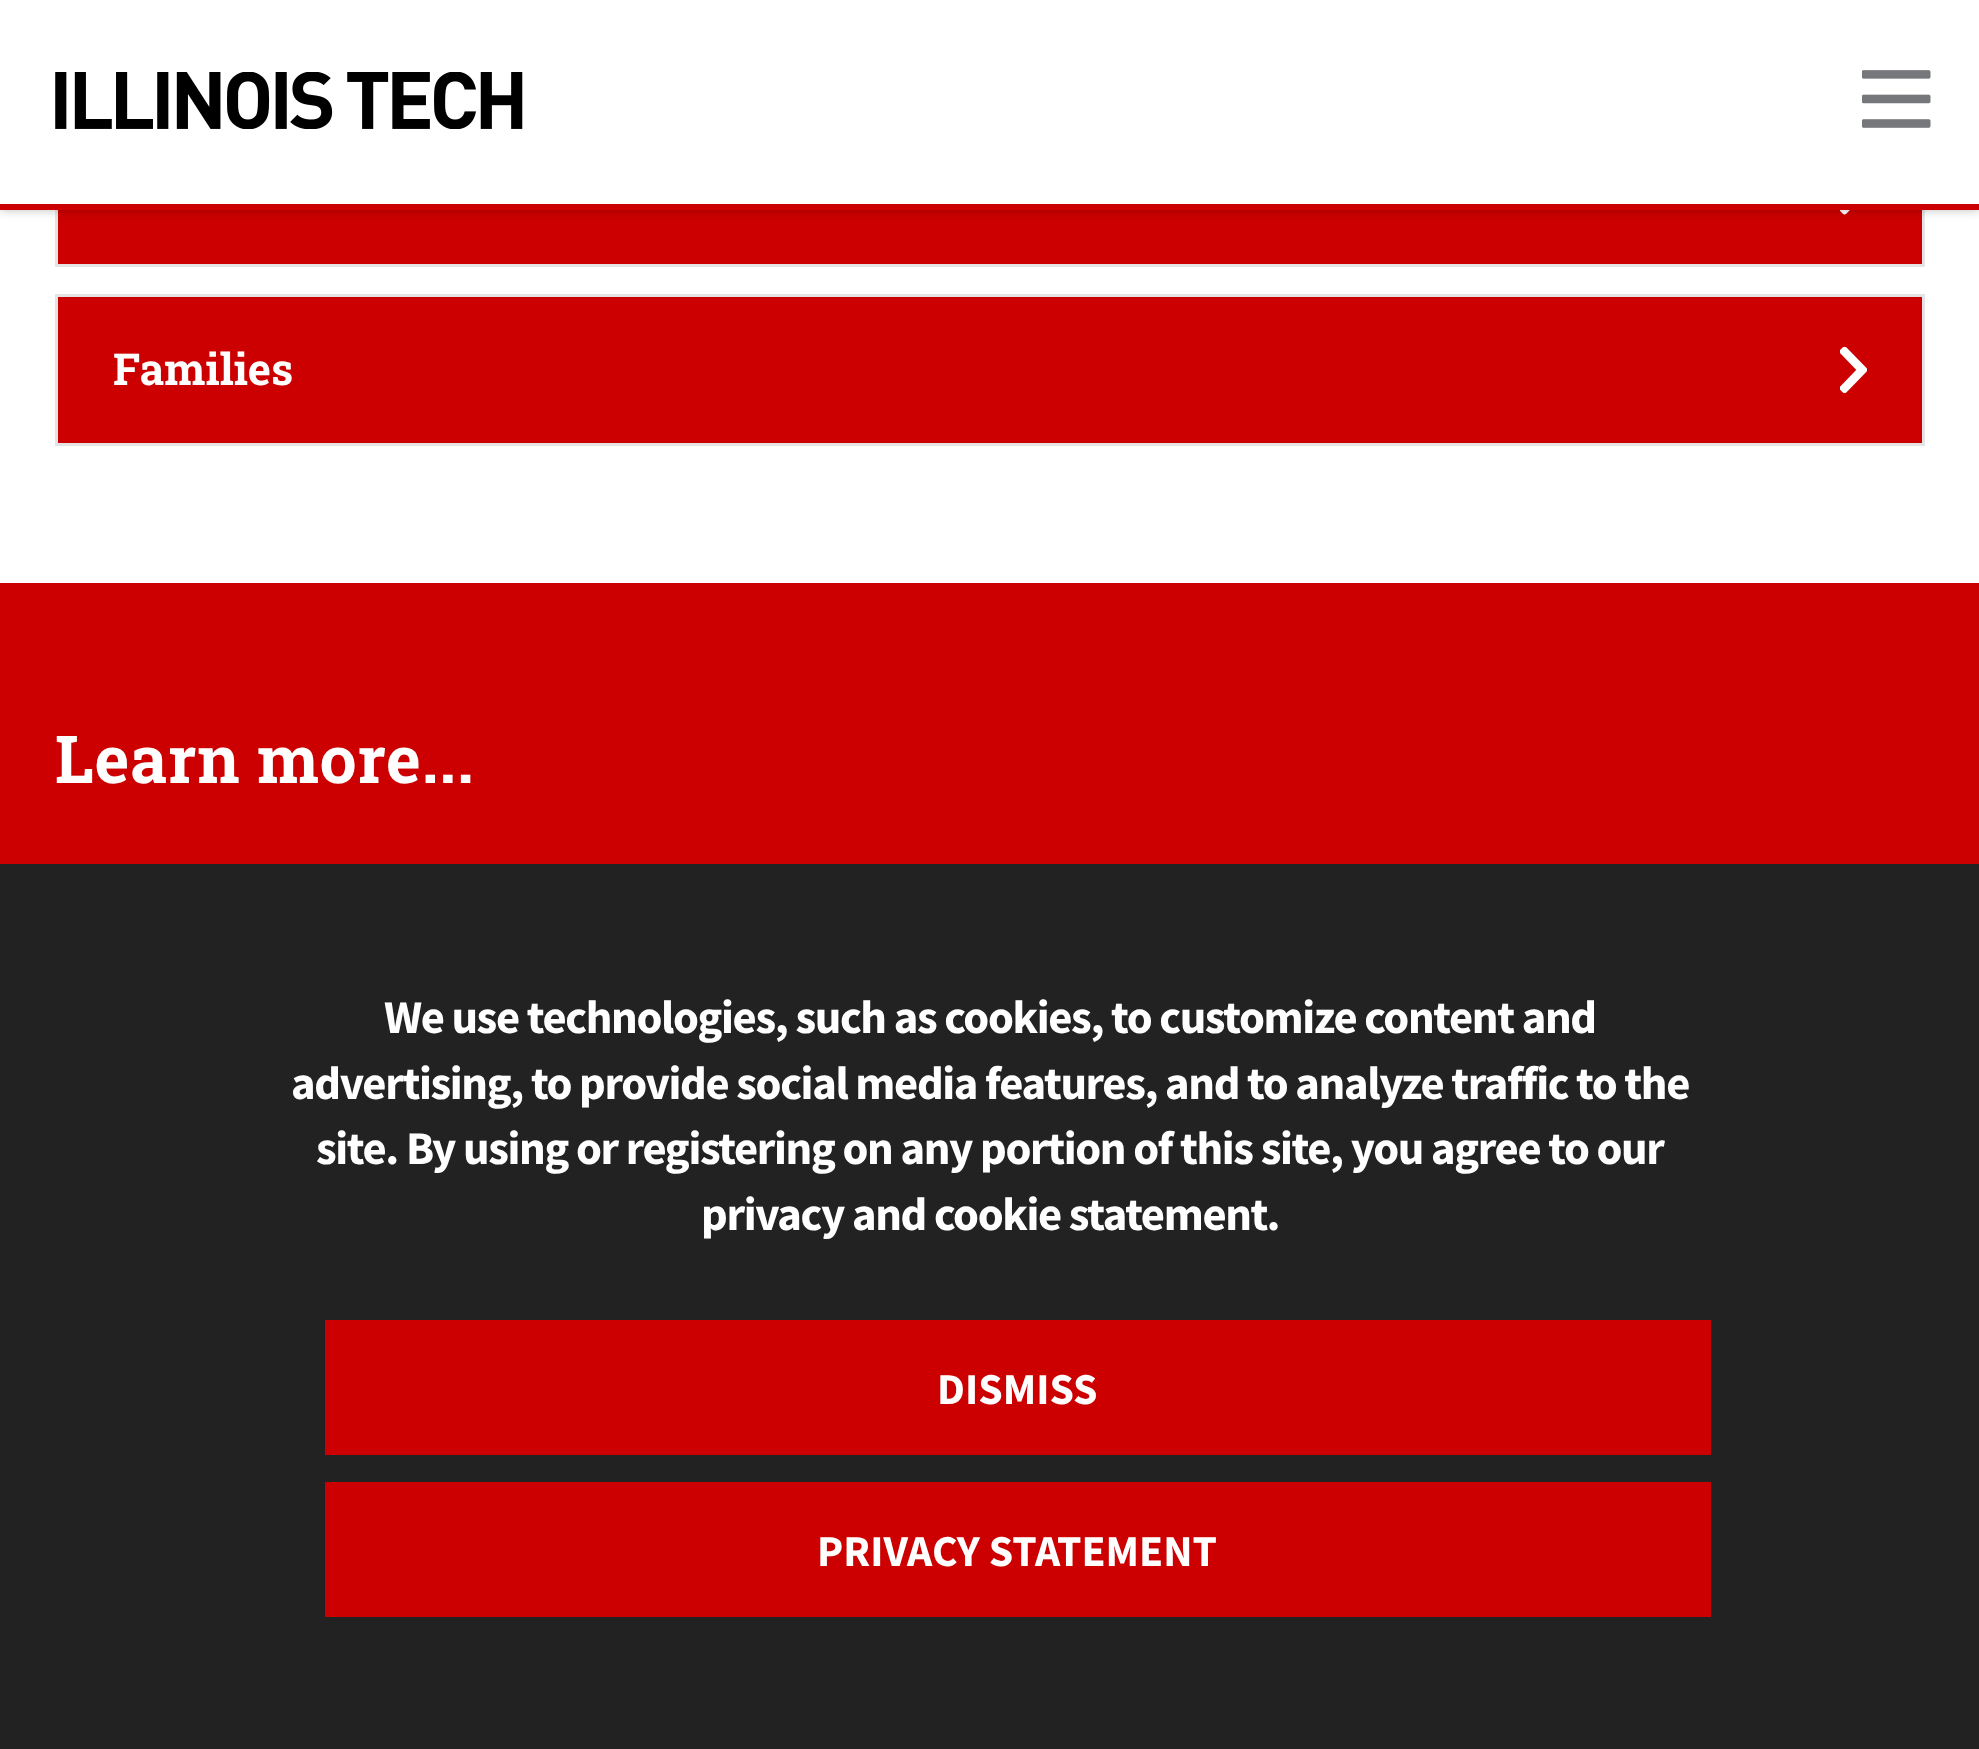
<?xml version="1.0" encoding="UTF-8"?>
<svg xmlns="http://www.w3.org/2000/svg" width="1979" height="1749">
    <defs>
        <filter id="blur1" x="-50%" y="-200%" width="200%" height="500%"><feGaussianBlur stdDeviation="5.5"/></filter>
    </defs>
    <rect width="100%" height="100%" fill="#FFFFFF"/>
    <rect x="56.5" y="119.5" width="1867" height="146" fill="none" stroke="#E4E4E4" stroke-width="3"/>
    <rect x="58" y="210" width="1864" height="54" fill="#CC0000"/>
    <image x="1840" y="210" width="10" height="5" href="img_03.png"/>
    <rect x="0" y="0" width="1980" height="209" fill="#000000" fill-opacity="0.3" filter="url(#blur1)"/>
    <rect x="0" y="0" width="1979" height="204" fill="#FFFFFF"/>
    <rect x="0" y="204" width="1979" height="6" fill="#CC0000"/>
    <image x="55" y="72" width="468" height="57" href="img_01.png"/>
    <image x="1862" y="70" width="69" height="58" href="img_02.png"/>
    <rect x="56.5" y="295.5" width="1867" height="149" fill="none" stroke="#E4E4E4" stroke-width="3"/>
    <rect x="58" y="297" width="1864" height="146" fill="#CC0000"/>
    <text x="113" y="385" font-family="Roboto Slab" font-size="44" font-weight="700" fill="#FFFFFF">Families</text>
    <image x="1840" y="347" width="27" height="46" href="img_04.png"/>
    <rect x="0" y="583" width="1979" height="281" fill="#CC0000"/>
    <text x="55" y="783" font-family="Roboto Slab" font-size="66" font-weight="700" letter-spacing="0.75" fill="#FFFFFF">Learn more...</text>
    <rect x="0" y="864" width="1979" height="885" fill="#222222"/>
    <text x="384" y="1033" font-family="Source Sans Pro" font-size="46.75" font-weight="700" letter-spacing="-1.38" fill="#FFFFFF">We use technologies, such as cookies, to customize content and</text>
    <text x="291" y="1099" font-family="Source Sans Pro" font-size="46.75" font-weight="700" letter-spacing="-1.38" fill="#FFFFFF">advertising, to provide social media features, and to analyze traffic to the</text>
    <text x="316" y="1164" font-family="Source Sans Pro" font-size="46.75" font-weight="700" letter-spacing="-1.38" fill="#FFFFFF">site. By using or registering on any portion of this site, you agree to our</text>
    <text x="701" y="1230" font-family="Source Sans Pro" font-size="46.75" font-weight="700" letter-spacing="-1.38" fill="#FFFFFF">privacy and cookie statement.</text>
    <rect x="325" y="1320" width="1386" height="135" fill="#CC0000"/>
    <text x="937" y="1404" font-family="Source Sans Pro" font-size="44" font-weight="700" fill="#FFFFFF">DISMISS</text>
    <rect x="325" y="1482" width="1386" height="135" fill="#CC0000"/>
    <text x="817" y="1566" font-family="Source Sans Pro" font-size="44" font-weight="700" fill="#FFFFFF">PRIVACY STATEMENT</text>
</svg>
